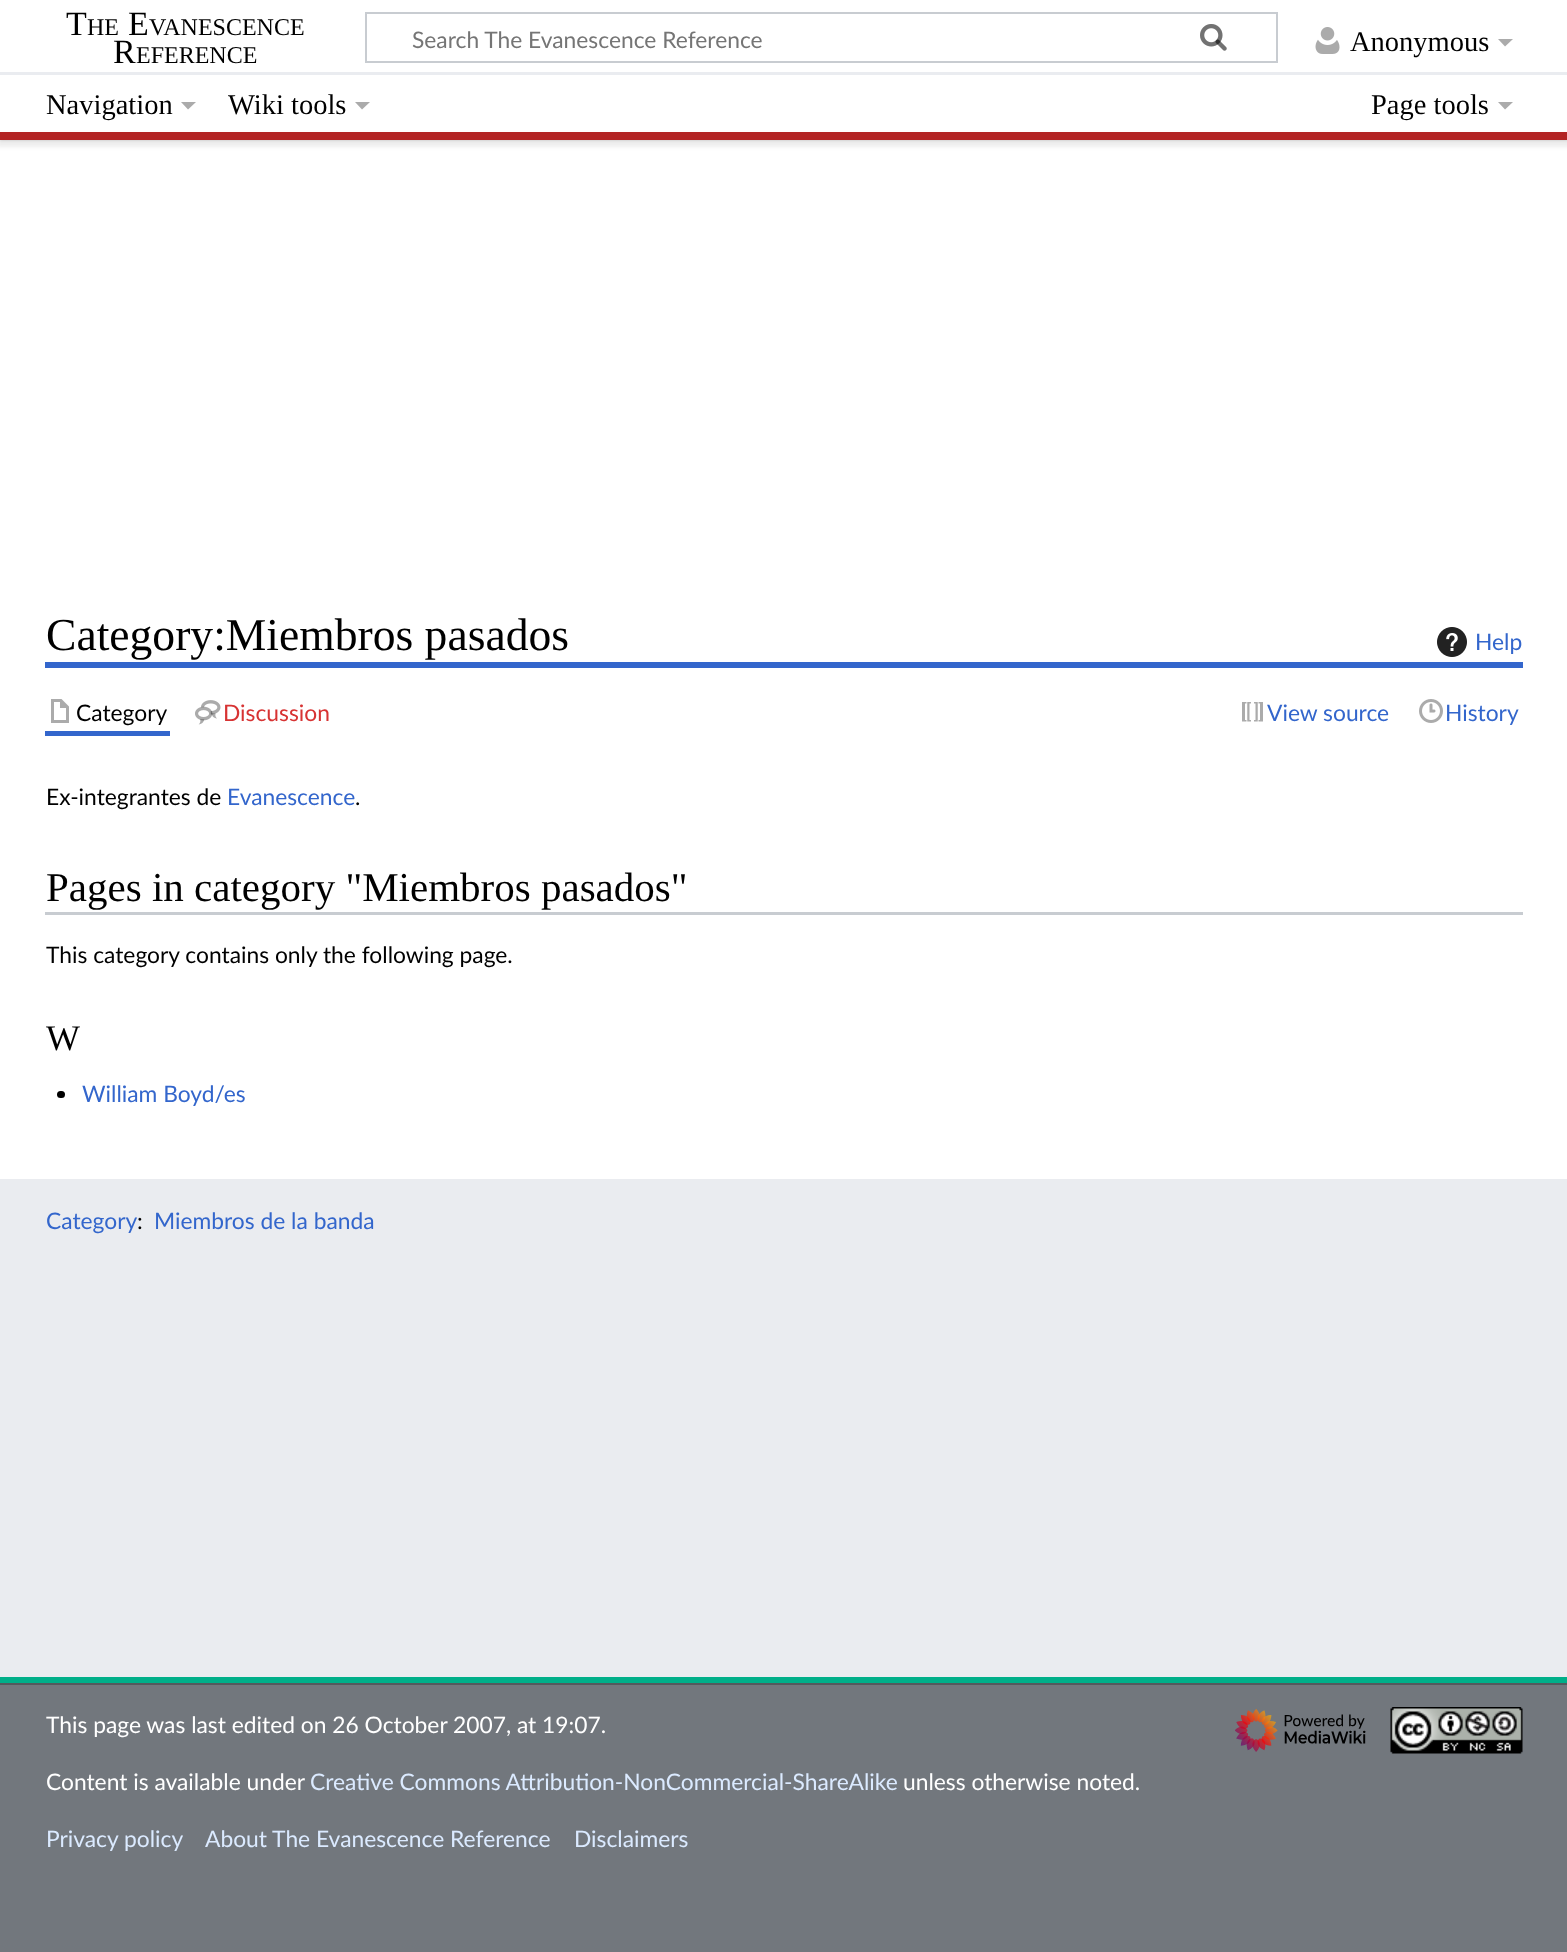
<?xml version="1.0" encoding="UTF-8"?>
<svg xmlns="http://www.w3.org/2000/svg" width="1567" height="1952">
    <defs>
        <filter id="blur1" x="-50%" y="-200%" width="200%" height="500%"><feGaussianBlur stdDeviation="1.5"/></filter>
        <filter id="blur2" x="-50%" y="-200%" width="200%" height="500%"><feGaussianBlur stdDeviation="2"/></filter>
    </defs>
    <rect width="100%" height="100%" fill="#72777D"/>
    <rect x="0" y="140" width="1567" height="1039" fill="#FFFFFF"/>
    <rect x="0" y="72" width="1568" height="68" fill="#000000" fill-opacity="0.2" filter="url(#blur1)"/>
    <rect x="-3" y="74" width="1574" height="73" fill="#000000" fill-opacity="0.07" filter="url(#blur2)"/>
    <rect x="0" y="0" width="1567" height="72" fill="#FFFFFF"/>
    <text x="66" y="35" font-family="Liberation Serif" font-size="34" fill="#000000">T</text>
    <text x="87" y="35" font-family="Liberation Serif" font-size="24" fill="#000000">HE</text>
    <text x="128" y="35" font-family="Liberation Serif" font-size="34" fill="#000000">E</text>
    <text x="149" y="35" font-family="Liberation Serif" font-size="24" fill="#000000">VANESCENCE</text>
    <text x="113" y="63" font-family="Liberation Serif" font-size="34" fill="#000000">R</text>
    <text x="136" y="63" font-family="Liberation Serif" font-size="24" fill="#000000">EFERENCE</text>
    <rect x="366" y="13" width="911" height="49" fill="none" stroke="#C8CCD1" stroke-width="2"/>
    <image x="1200" y="24" width="27" height="27" href="img_01.png"/>
    <text x="412" y="48" font-family="Lato" font-size="22.8" fill="#757575">Search The Evanescence Reference</text>
    <image x="1200" y="24" width="27" height="27" href="img_02.png"/>
    <image x="1315" y="27" width="25" height="27" href="img_03.png"/>
    <text x="1350" y="51" font-family="Liberation Serif" font-size="28.5" fill="#000000">Anonymous</text>
    <path d="M 1513 39 L 1505 46.5 L 1498 39 Z" fill="#ABABAB"/>
    <rect x="0" y="75" width="1567" height="57" fill="#FFFFFF"/>
    <rect x="0" y="72" width="1567" height="3" fill="#EAECF0"/>
    <rect x="0" y="132" width="1567" height="8" fill="#B32424"/>
    <rect x="0" y="1179" width="1567" height="498" fill="#EAECF0"/>
    <rect x="0" y="1677" width="1567" height="6" fill="#00AF89"/>
    <text x="46" y="114" font-family="Liberation Serif" font-size="28.5" fill="#000000">Navigation</text>
    <path d="M 196 102 L 188 109.5 L 181 102 Z" fill="#ABABAB"/>
    <text x="228" y="114" font-family="Liberation Serif" font-size="28.5" fill="#000000">Wiki tools</text>
    <path d="M 370 102 L 362 109.5 L 355 102 Z" fill="#ABABAB"/>
    <text x="1371" y="114" font-family="Liberation Serif" font-size="28.5" fill="#000000">Page tools</text>
    <path d="M 1513 102 L 1505 109.5 L 1498 102 Z" fill="#ABABAB"/>
    <rect x="45" y="662" width="1478" height="6" fill="#3366CC"/>
    <text x="46" y="650" font-family="Liberation Serif" font-size="45.6" fill="#000000">Category:Miembros pasados</text>
    <image x="1437" y="627" width="30" height="30" href="img_04.png"/>
    <text x="1475" y="650" font-family="Lato" font-size="22.8" fill="#3366CC">Help</text>
    <rect x="45" y="731" width="125" height="5" fill="#3366CC"/>
    <image x="51" y="699" width="18" height="24" href="img_05.png"/>
    <text x="76" y="721" font-family="Lato" font-size="22.8" fill="#000000">Category</text>
    <image x="195" y="700" width="26" height="25" href="img_06.png"/>
    <text x="223" y="721" font-family="Lato" font-size="22.8" fill="#D73333">Discussion</text>
    <image x="1242" y="702" width="21" height="20" href="img_07.png"/>
    <text x="1267" y="721" font-family="Lato" font-size="22.8" fill="#3366CC">View source</text>
    <image x="1419" y="699" width="24" height="24" href="img_08.png"/>
    <text x="1445" y="721" font-family="Lato" font-size="22.8" fill="#3366CC">History</text>
    <text x="46" y="805" font-family="Lato" font-size="22.8" fill="#000000">Ex-integrantes de</text>
    <text x="227" y="805" font-family="Lato" font-size="22.8" fill="#3366CC">Evanescence</text>
    <text x="355" y="805" font-family="Lato" font-size="22.8" fill="#000000">.</text>
    <rect x="45" y="912" width="1478" height="3" fill="#C8CCD1"/>
    <text x="46" y="901" font-family="Liberation Serif" font-size="41" fill="#000000">Pages in category "Miembros pasados"</text>
    <text x="46" y="963" font-family="Lato" font-size="22.8" fill="#000000">This category contains only the following page.</text>
    <text x="46" y="1050" font-family="Liberation Serif" font-size="36" fill="#000000">W</text>
    <rect x="57" y="1091" width="8" height="7" rx="3.5" fill="#000000"/>
    <text x="82" y="1102" font-family="Lato" font-size="22.8" fill="#3366CC">William Boyd/es</text>
    <text x="46" y="1229" font-family="Lato" font-size="22.8" fill="#3366CC">Category</text>
    <text x="137" y="1229" font-family="Lato" font-size="22.8" fill="#000000">:</text>
    <text x="154" y="1229" font-family="Lato" font-size="22.8" fill="#3366CC">Miembros de la banda</text>
    <rect x="0" y="1683" width="1567" height="2" fill="#54595D"/>
    <text x="46" y="1733" font-family="Lato" font-size="22.8" fill="#FFFFFF">This page was last edited on 26 October 2007, at 19:07.</text>
    <text x="46" y="1790" font-family="Lato" font-size="22.8" fill="#FFFFFF">Content is available under</text>
    <text x="310" y="1790" font-family="Lato" font-size="22.8" fill="#DBEAFF">Creative Commons Attribution-NonCommercial-ShareAlike</text>
    <text x="903" y="1790" font-family="Lato" font-size="22.8" fill="#FFFFFF">unless otherwise noted.</text>
    <text x="46" y="1847" font-family="Lato" font-size="22.8" fill="#DBEAFF">Privacy policy</text>
    <text x="205" y="1847" font-family="Lato" font-size="22.8" fill="#DBEAFF">About The Evanescence Reference</text>
    <text x="574" y="1847" font-family="Lato" font-size="22.8" fill="#DBEAFF">Disclaimers</text>
    <image x="1235" y="1708" width="131" height="44" href="img_09.png"/>
    <image x="1390" y="1707" width="133" height="47" href="img_10.png"/>
</svg>
